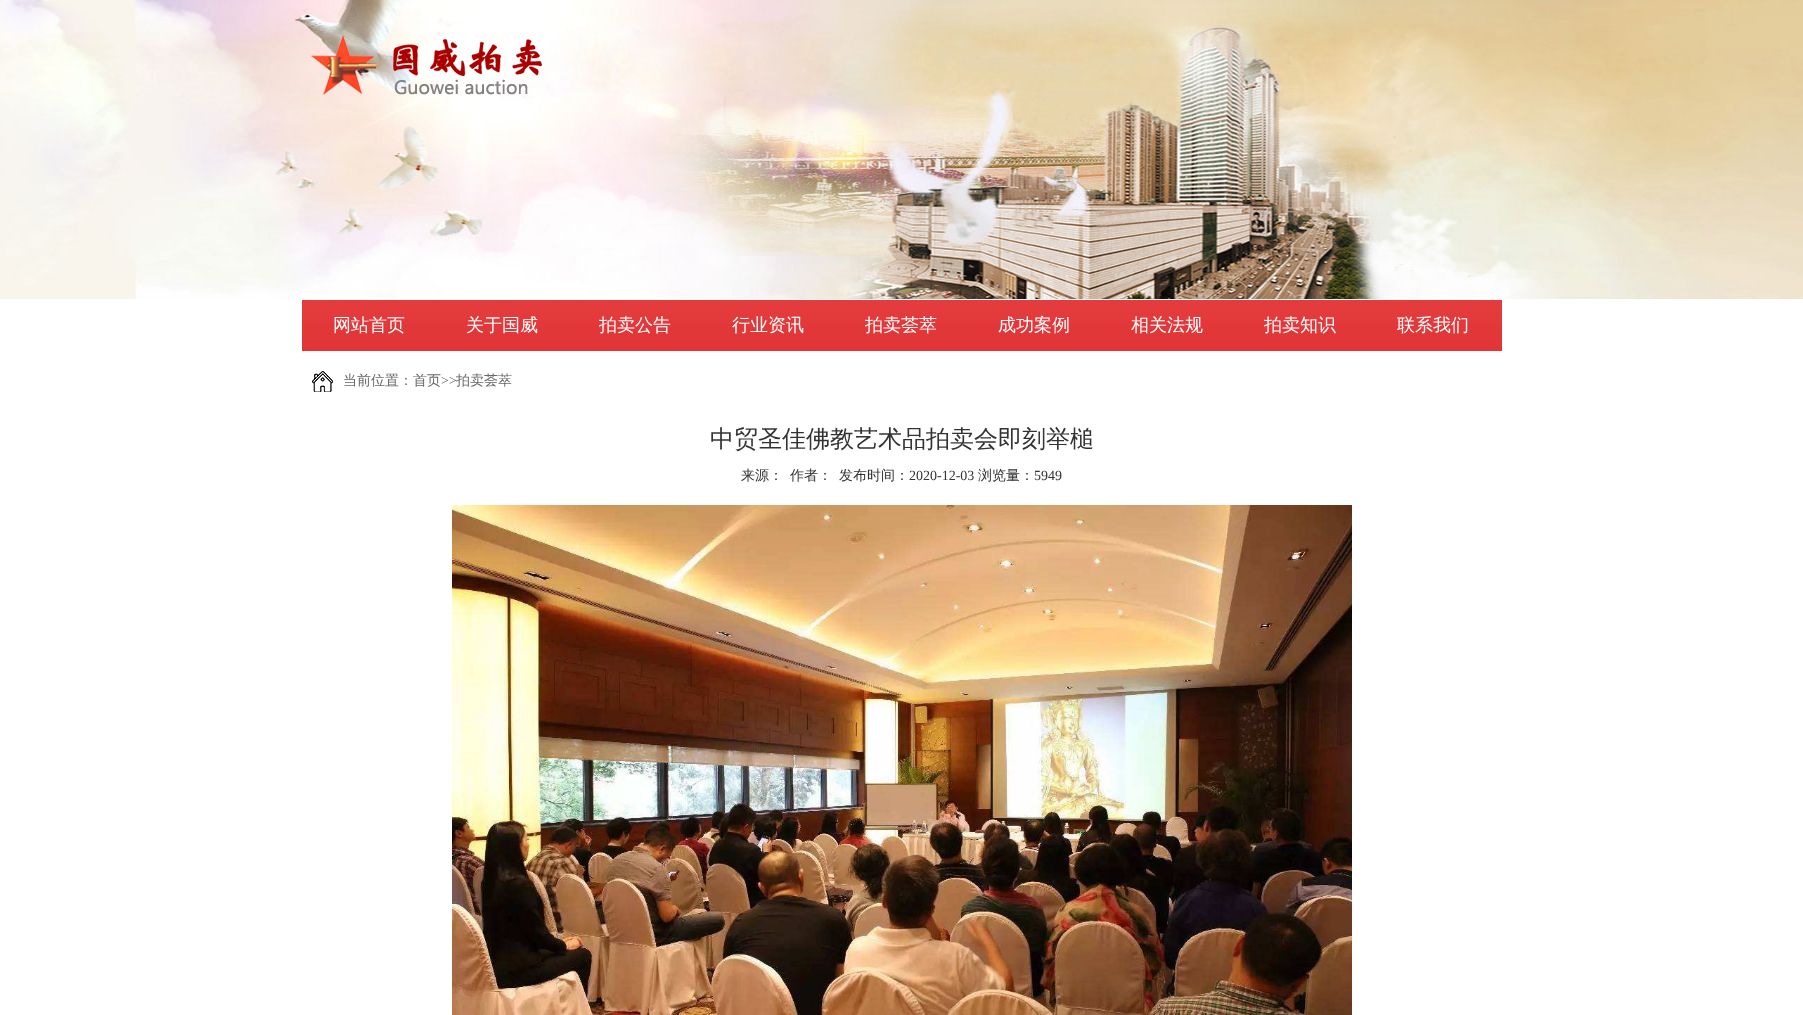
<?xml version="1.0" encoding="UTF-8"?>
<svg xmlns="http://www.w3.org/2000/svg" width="1803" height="1015">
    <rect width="100%" height="100%" fill="#FFFFFF"/>
    <image x="0" y="0" width="1803" height="299" href="img_01.png"/>
    <image x="311" y="34" width="231" height="61" href="img_02.png"/>
    <image x="302" y="300" width="1200" height="51" href="img_03.png"/>
    <text x="333" y="331" font-family="WenQuanYi Zen Hei" font-size="18" font-weight="500" fill="#FFFFFF">网站首页</text>
    <text x="466" y="331" font-family="WenQuanYi Zen Hei" font-size="18" font-weight="500" fill="#FFFFFF">关于国威</text>
    <text x="599" y="331" font-family="WenQuanYi Zen Hei" font-size="18" font-weight="500" fill="#FFFFFF">拍卖公告</text>
    <text x="732" y="331" font-family="WenQuanYi Zen Hei" font-size="18" font-weight="500" fill="#FFFFFF">行业资讯</text>
    <text x="865" y="331" font-family="WenQuanYi Zen Hei" font-size="18" font-weight="500" fill="#FFFFFF">拍卖荟萃</text>
    <text x="998" y="331" font-family="WenQuanYi Zen Hei" font-size="18" font-weight="500" fill="#FFFFFF">成功案例</text>
    <text x="1131" y="331" font-family="WenQuanYi Zen Hei" font-size="18" font-weight="500" fill="#FFFFFF">相关法规</text>
    <text x="1264" y="331" font-family="WenQuanYi Zen Hei" font-size="18" font-weight="500" fill="#FFFFFF">拍卖知识</text>
    <text x="1397" y="331" font-family="WenQuanYi Zen Hei" font-size="18" font-weight="500" fill="#FFFFFF">联系我们</text>
    <image x="312" y="371" width="21" height="21" href="img_04.png"/>
    <text x="343" y="385" font-family="WenQuanYi Zen Hei" font-size="14" font-weight="500" fill="#676767">当前位置：首页</text>
    <text x="441" y="385" font-family="Liberation Serif" font-size="14" fill="#676767">&gt;&gt;</text>
    <text x="456" y="385" font-family="WenQuanYi Zen Hei" font-size="14" font-weight="500" fill="#676767">拍卖荟萃</text>
    <text x="710" y="447" font-family="WenQuanYi Zen Hei" font-size="24" font-weight="500" fill="#333333">中贸圣佳佛教艺术品拍卖会即刻举槌</text>
    <text x="741" y="480" font-family="WenQuanYi Zen Hei" font-size="14" font-weight="500" fill="#333333">来源：</text>
    <text x="790" y="480" font-family="WenQuanYi Zen Hei" font-size="14" font-weight="500" fill="#333333">作者：</text>
    <text x="839" y="480" font-family="WenQuanYi Zen Hei" font-size="14" font-weight="500" fill="#333333">发布时间：</text>
    <text x="909" y="480" font-family="Liberation Serif" font-size="14" fill="#333333">2020-12-03</text>
    <text x="978" y="480" font-family="WenQuanYi Zen Hei" font-size="14" font-weight="500" fill="#333333">浏览量：</text>
    <text x="1034" y="480" font-family="Liberation Serif" font-size="14" fill="#333333">5949</text>
    <image x="452" y="505" width="900" height="510" href="img_05.png"/>
</svg>
